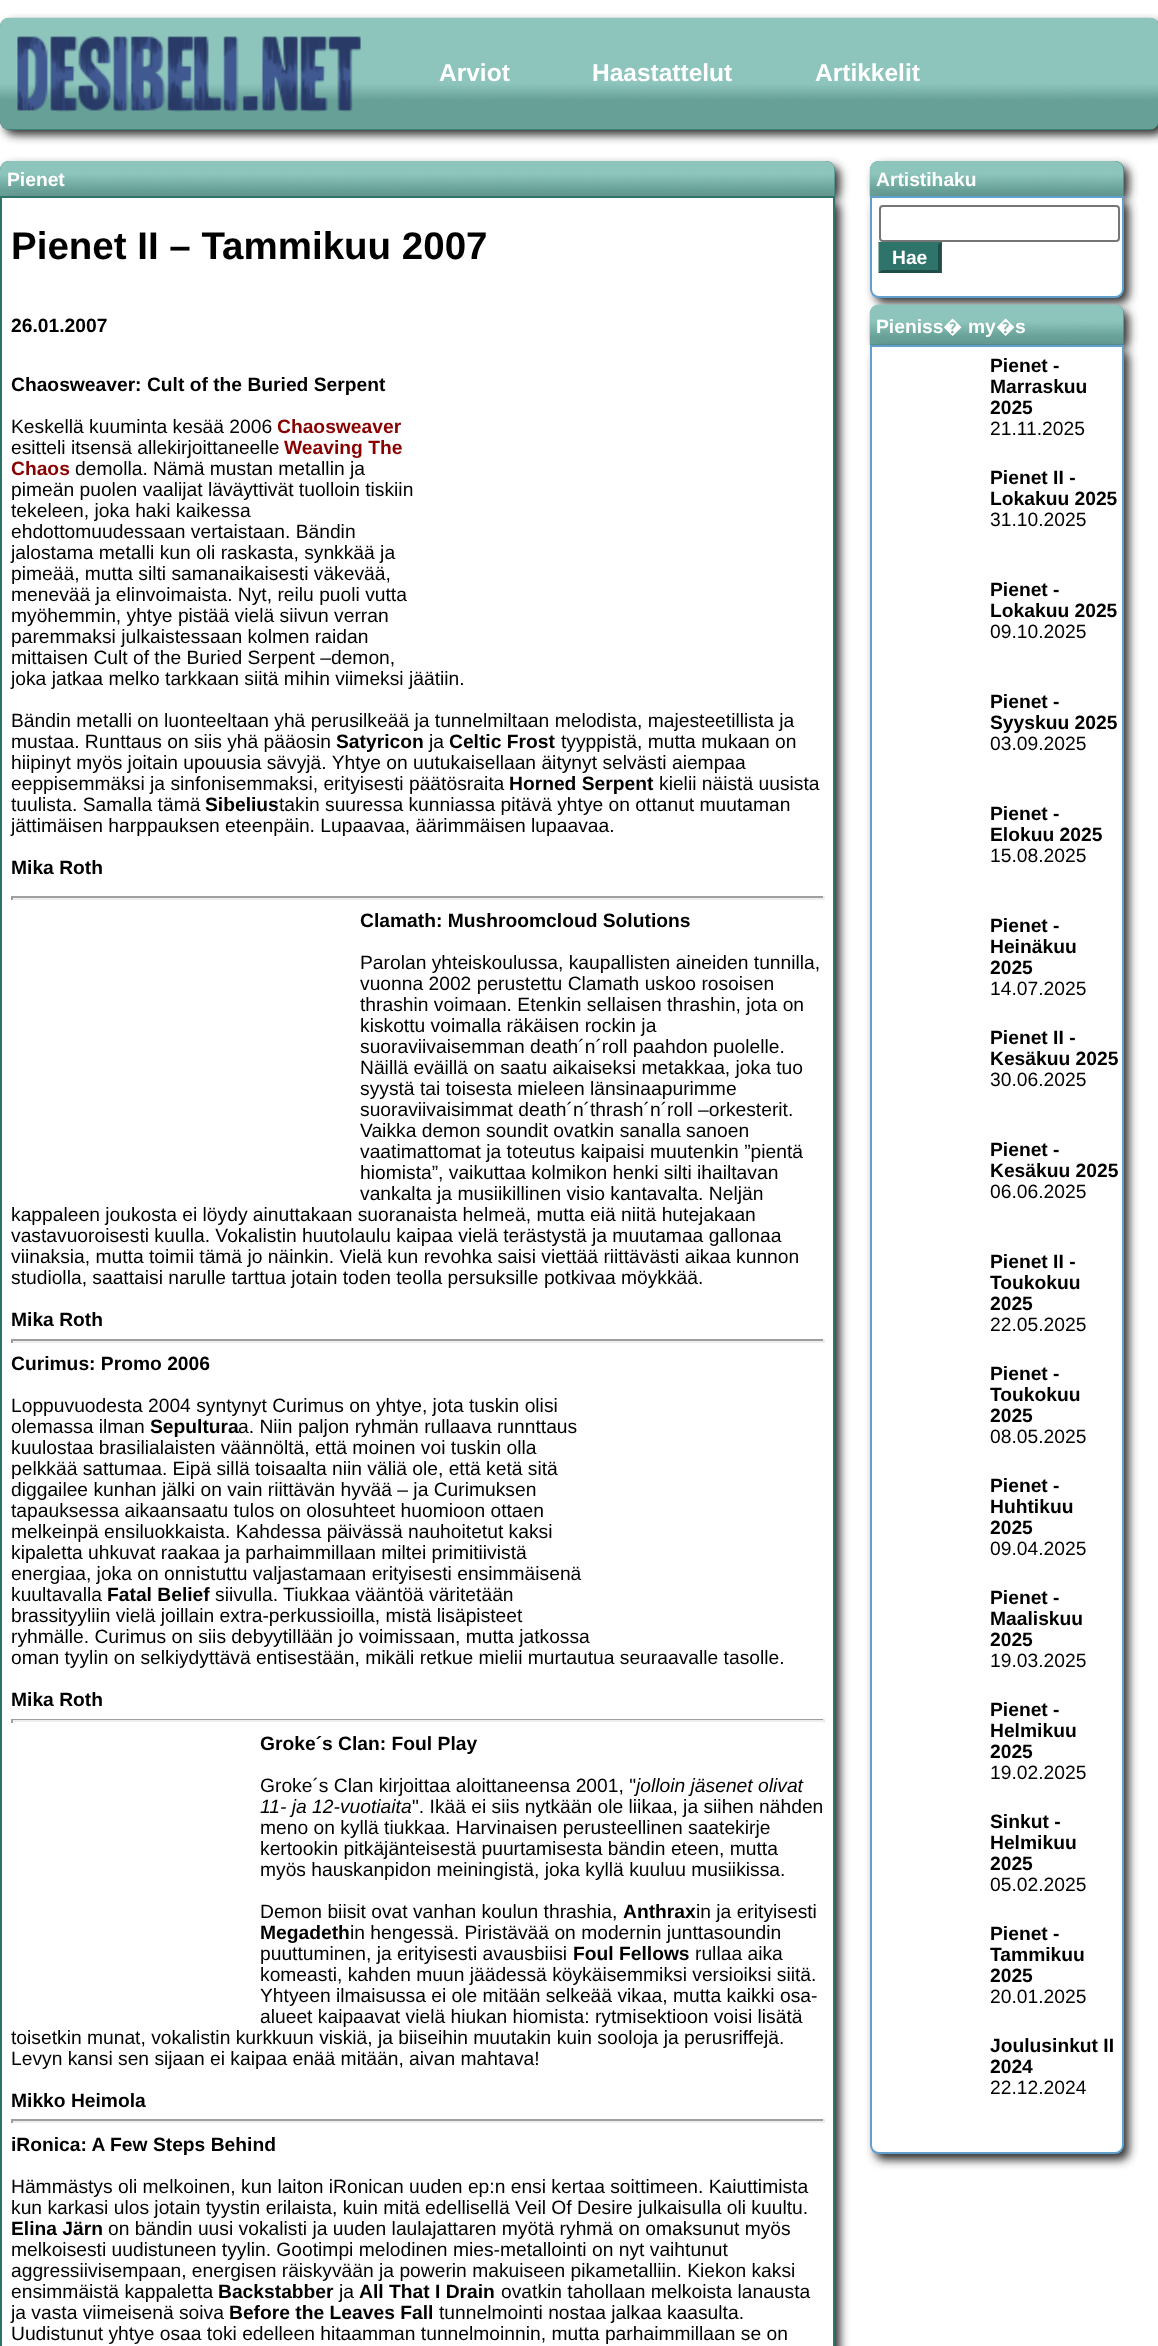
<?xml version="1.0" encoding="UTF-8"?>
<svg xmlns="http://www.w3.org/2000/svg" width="1158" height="2346">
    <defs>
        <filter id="blur1" x="-50%" y="-200%" width="200%" height="500%"><feGaussianBlur stdDeviation="5"/></filter>
    </defs>
    <rect width="100%" height="100%" fill="#FFFFFF"/>
    <rect x="5" y="23" width="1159" height="112" rx="9" fill="#333333" filter="url(#blur1)"/>
    <rect x="0" y="18" width="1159" height="112" rx="9" fill="#2E746A"/>
    <image x="0" y="17" width="1158" height="113" href="img_01.png"/>
    <image x="17" y="36" width="344" height="76" href="img_02.png"/>
    <text x="439" y="81" font-family="Liberation Sans" font-size="24.5" font-weight="700" fill="#FFFFFF">Arviot</text>
    <text x="592" y="81" font-family="Liberation Sans" font-size="24.5" font-weight="700" fill="#FFFFFF">Haastattelut</text>
    <text x="815" y="81" font-family="Liberation Sans" font-size="24.5" font-weight="700" fill="#FFFFFF">Artikkelit</text>
    <rect x="5" y="166" width="835" height="35" rx="9" fill="#333333" filter="url(#blur1)"/>
    <path d="M 9 161 H 826 C 831 161 835 165 835 170 V 196 H 0 V 170 C 0 165 4 161 9 161 Z" fill="#2E746A"/>
    <image x="0" y="161" width="835" height="35" href="img_03.png"/>
    <rect x="5" y="201" width="835" height="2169" rx="9" fill="#333333" filter="url(#blur1)"/>
    <text x="7" y="186" font-family="Liberation Sans" font-size="19.25" font-weight="700" fill="#FFFFFF">Pienet</text>
    <rect x="1" y="197" width="833" height="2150" fill="#FFFFFF" stroke="#2E746A" stroke-width="2"/>
    <text x="11" y="259" font-family="Liberation Sans" font-size="38.5" font-weight="700" fill="#000000">Pienet II – Tammikuu 2007</text>
    <text x="11" y="332" font-family="Liberation Sans" font-size="19.25" font-weight="700" fill="#000000">26.01.2007</text>
    <text x="11" y="391" font-family="Liberation Sans" font-size="19.25" font-weight="700" fill="#000000">Chaosweaver: Cult of the Buried Serpent</text>
    <text x="11" y="433" font-family="Liberation Sans" font-size="19.25" fill="#000000">Keskellä kuuminta kesää 2006</text>
    <text x="277" y="433" font-family="Liberation Sans" font-size="19.25" font-weight="700" fill="#880000">Chaosweaver</text>
    <text x="11" y="454" font-family="Liberation Sans" font-size="19.25" fill="#000000">esitteli itsensä allekirjoittaneelle</text>
    <text x="284" y="454" font-family="Liberation Sans" font-size="19.25" font-weight="700" fill="#880000">Weaving The</text>
    <text x="11" y="475" font-family="Liberation Sans" font-size="19.25" font-weight="700" fill="#880000">Chaos</text>
    <text x="75" y="475" font-family="Liberation Sans" font-size="19.25" fill="#000000">demolla. Nämä mustan metallin ja</text>
    <text font-family="Liberation Sans" font-size="19.25" fill="#000000">
        <tspan x="11" y="496">pimeän puolen vaalijat läväyttivät tuolloin tiskiin</tspan>
        <tspan x="11" y="517">tekeleen, joka haki kaikessa</tspan>
        <tspan x="11" y="538">ehdottomuudessaan vertaistaan. Bändin</tspan>
        <tspan x="11" y="559">jalostama metalli kun oli raskasta, synkkää ja</tspan>
        <tspan x="11" y="580">pimeää, mutta silti samanaikaisesti väkevää,</tspan>
        <tspan x="11" y="601">menevää ja elinvoimaista. Nyt, reilu puoli vutta</tspan>
        <tspan x="11" y="622">myöhemmin, yhtye pistää vielä siivun verran</tspan>
        <tspan x="11" y="643">paremmaksi julkaistessaan kolmen raidan</tspan>
        <tspan x="11" y="664">mittaisen Cult of the Buried Serpent –demon,</tspan>
        <tspan x="11" y="685">joka jatkaa melko tarkkaan siitä mihin viimeksi jäätiin.</tspan>
    </text>
    <text font-family="Liberation Sans" font-size="19.25" fill="#000000">
        <tspan x="11" y="727">Bändin metalli on luonteeltaan yhä perusilkeää ja tunnelmiltaan melodista, majesteetillista ja</tspan>
        <tspan x="11" y="748">mustaa. Runttaus on siis yhä pääosin</tspan>
    </text>
    <text x="336" y="748" font-family="Liberation Sans" font-size="19.25" font-weight="700" fill="#000000">Satyricon</text>
    <text x="429" y="748" font-family="Liberation Sans" font-size="19.25" fill="#000000">ja</text>
    <text x="449" y="748" font-family="Liberation Sans" font-size="19.25" font-weight="700" fill="#000000">Celtic Frost</text>
    <text x="561" y="748" font-family="Liberation Sans" font-size="19.25" fill="#000000">tyyppistä, mutta mukaan on</text>
    <text font-family="Liberation Sans" font-size="19.25" fill="#000000">
        <tspan x="11" y="769">hiipinyt myös joitain upouusia sävyjä. Yhtye on uutukaisellaan äitynyt selvästi aiempaa</tspan>
        <tspan x="11" y="790">eeppisemmäksi ja sinfonisemmaksi, erityisesti päätösraita</tspan>
    </text>
    <text x="509" y="790" font-family="Liberation Sans" font-size="19.25" font-weight="700" fill="#000000">Horned Serpent</text>
    <text x="659" y="790" font-family="Liberation Sans" font-size="19.25" fill="#000000">kielii näistä uusista</text>
    <text x="11" y="811" font-family="Liberation Sans" font-size="19.25" fill="#000000">tuulista. Samalla tämä</text>
    <text x="205" y="811" font-family="Liberation Sans" font-size="19.25" font-weight="700" fill="#000000">Sibelius</text>
    <text x="279" y="811" font-family="Liberation Sans" font-size="19.25" fill="#000000">takin suuressa kunniassa pitävä yhtye on ottanut muutaman</text>
    <text x="11" y="832" font-family="Liberation Sans" font-size="19.25" fill="#000000">jättimäisen harppauksen eteenpäin. Lupaavaa, äärimmäisen lupaavaa.</text>
    <text x="11" y="874" font-family="Liberation Sans" font-size="19.25" font-weight="700" fill="#000000">Mika Roth</text>
    <rect x="11" y="896" width="813" height="2" fill="#9F9F9F"/>
    <rect x="823" y="896" width="2" height="4" fill="#EEEEEE"/>
    <rect x="11" y="898" width="813" height="2" fill="#EEEEEE"/>
    <rect x="11" y="896" width="2" height="4" fill="#9F9F9F"/>
    <text x="360" y="927" font-family="Liberation Sans" font-size="19.25" font-weight="700" fill="#000000">Clamath: Mushroomcloud Solutions</text>
    <text font-family="Liberation Sans" font-size="19.25" fill="#000000">
        <tspan x="360" y="969">Parolan yhteiskoulussa, kaupallisten aineiden tunnilla,</tspan>
        <tspan x="360" y="990">vuonna 2002 perustettu Clamath uskoo rosoisen</tspan>
        <tspan x="360" y="1011">thrashin voimaan. Etenkin sellaisen thrashin, jota on</tspan>
        <tspan x="360" y="1032">kiskottu voimalla räkäisen rockin ja</tspan>
        <tspan x="360" y="1053">suoraviivaisemman death´n´roll paahdon puolelle.</tspan>
        <tspan x="360" y="1074">Näillä eväillä on saatu aikaiseksi metakkaa, joka tuo</tspan>
        <tspan x="360" y="1095">syystä tai toisesta mieleen länsinaapurimme</tspan>
        <tspan x="360" y="1116">suoraviivaisimmat death´n´thrash´n´roll –orkesterit.</tspan>
        <tspan x="360" y="1137">Vaikka demon soundit ovatkin sanalla sanoen</tspan>
        <tspan x="360" y="1158">vaatimattomat ja toteutus kaipaisi muutenkin ”pientä</tspan>
        <tspan x="360" y="1179">hiomista”, vaikuttaa kolmikon henki silti ihailtavan</tspan>
        <tspan x="360" y="1200">vankalta ja musiikillinen visio kantavalta. Neljän</tspan>
    </text>
    <text font-family="Liberation Sans" font-size="19.25" fill="#000000">
        <tspan x="11" y="1221">kappaleen joukosta ei löydy ainuttakaan suoranaista helmeä, mutta eiä niitä hutejakaan</tspan>
        <tspan x="11" y="1242">vastavuoroisesti kuulla. Vokalistin huutolaulu kaipaa vielä terästystä ja muutamaa gallonaa</tspan>
        <tspan x="11" y="1263">viinaksia, mutta toimii tämä jo näinkin. Vielä kun revohka saisi viettää riittävästi aikaa kunnon</tspan>
        <tspan x="11" y="1284">studiolla, saattaisi narulle tarttua jotain toden teolla persuksille potkivaa möykkää.</tspan>
    </text>
    <text x="11" y="1326" font-family="Liberation Sans" font-size="19.25" font-weight="700" fill="#000000">Mika Roth</text>
    <rect x="11" y="1339" width="813" height="2" fill="#9F9F9F"/>
    <rect x="823" y="1339" width="2" height="4" fill="#EEEEEE"/>
    <rect x="11" y="1341" width="813" height="2" fill="#EEEEEE"/>
    <rect x="11" y="1339" width="2" height="4" fill="#9F9F9F"/>
    <text x="11" y="1370" font-family="Liberation Sans" font-size="19.25" font-weight="700" fill="#000000">Curimus: Promo 2006</text>
    <text font-family="Liberation Sans" font-size="19.25" fill="#000000">
        <tspan x="11" y="1412">Loppuvuodesta 2004 syntynyt Curimus on yhtye, jota tuskin olisi</tspan>
        <tspan x="11" y="1433">olemassa ilman</tspan>
    </text>
    <text x="150" y="1433" font-family="Liberation Sans" font-size="19.25" font-weight="700" fill="#000000">Sepultura</text>
    <text x="238" y="1433" font-family="Liberation Sans" font-size="19.25" fill="#000000">a. Niin paljon ryhmän rullaava runnttaus</text>
    <text font-family="Liberation Sans" font-size="19.25" fill="#000000">
        <tspan x="11" y="1454">kuulostaa brasilialaisten väännöltä, että moinen voi tuskin olla</tspan>
        <tspan x="11" y="1475">pelkkää sattumaa. Eipä sillä toisaalta niin väliä ole, että ketä sitä</tspan>
        <tspan x="11" y="1496">diggailee kunhan jälki on vain riittävän hyvää – ja Curimuksen</tspan>
        <tspan x="11" y="1517">tapauksessa aikaansaatu tulos on olosuhteet huomioon ottaen</tspan>
        <tspan x="11" y="1538">melkeinpä ensiluokkaista. Kahdessa päivässä nauhoitetut kaksi</tspan>
        <tspan x="11" y="1559">kipaletta uhkuvat raakaa ja parhaimmillaan miltei primitiivistä</tspan>
        <tspan x="11" y="1580">energiaa, joka on onnistuttu valjastamaan erityisesti ensimmäisenä</tspan>
        <tspan x="11" y="1601">kuultavalla</tspan>
    </text>
    <text x="107" y="1601" font-family="Liberation Sans" font-size="19.25" font-weight="700" fill="#000000">Fatal Belief</text>
    <text x="215" y="1601" font-family="Liberation Sans" font-size="19.25" fill="#000000">siivulla. Tiukkaa vääntöä väritetään</text>
    <text font-family="Liberation Sans" font-size="19.25" fill="#000000">
        <tspan x="11" y="1622">brassityyliin vielä joillain extra-perkussioilla, mistä lisäpisteet</tspan>
        <tspan x="11" y="1643">ryhmälle. Curimus on siis debyytillään jo voimissaan, mutta jatkossa</tspan>
        <tspan x="11" y="1664">oman tyylin on selkiydyttävä entisestään, mikäli retkue mielii murtautua seuraavalle tasolle.</tspan>
    </text>
    <text x="11" y="1706" font-family="Liberation Sans" font-size="19.25" font-weight="700" fill="#000000">Mika Roth</text>
    <rect x="11" y="1719" width="813" height="1" fill="#9F9F9F"/>
    <rect x="823" y="1719" width="2" height="4" fill="#EEEEEE"/>
    <rect x="11" y="1720" width="813" height="2" fill="#EEEEEE"/>
    <rect x="11" y="1719" width="2" height="4" fill="#9F9F9F"/>
    <text x="260" y="1750" font-family="Liberation Sans" font-size="19.25" font-weight="700" fill="#000000">Groke´s Clan: Foul Play</text>
    <text x="260" y="1792" font-family="Liberation Sans" font-size="19.25" fill="#000000">Groke´s Clan kirjoittaa aloittaneensa 2001, "</text>
    <text x="636" y="1792" font-family="Liberation Sans" font-size="19.25" font-style="italic" fill="#000000">jolloin jäsenet olivat</text>
    <text x="260" y="1813" font-family="Liberation Sans" font-size="19.25" font-style="italic" fill="#000000">11- ja 12-vuotiaita</text>
    <text x="412" y="1813" font-family="Liberation Sans" font-size="19.25" fill="#000000">". Ikää ei siis nytkään ole liikaa, ja siihen nähden</text>
    <text font-family="Liberation Sans" font-size="19.25" fill="#000000">
        <tspan x="260" y="1834">meno on kyllä tiukkaa. Harvinaisen perusteellinen saatekirje</tspan>
        <tspan x="260" y="1855">kertookin pitkäjänteisestä puurtamisesta bändin eteen, mutta</tspan>
        <tspan x="260" y="1876">myös hauskanpidon meiningistä, joka kyllä kuuluu musiikissa.</tspan>
    </text>
    <text x="260" y="1918" font-family="Liberation Sans" font-size="19.25" fill="#000000">Demon biisit ovat vanhan koulun thrashia,</text>
    <text x="623" y="1918" font-family="Liberation Sans" font-size="19.25" font-weight="700" fill="#000000">Anthrax</text>
    <text x="696" y="1918" font-family="Liberation Sans" font-size="19.25" fill="#000000">in ja erityisesti</text>
    <text x="260" y="1939" font-family="Liberation Sans" font-size="19.25" font-weight="700" fill="#000000">Megadeth</text>
    <text x="350" y="1939" font-family="Liberation Sans" font-size="19.25" fill="#000000">in hengessä. Piristävää on modernin junttasoundin</text>
    <text x="260" y="1960" font-family="Liberation Sans" font-size="19.25" fill="#000000">puuttuminen, ja erityisesti avausbiisi</text>
    <text x="573" y="1960" font-family="Liberation Sans" font-size="19.25" font-weight="700" fill="#000000">Foul Fellows</text>
    <text x="695" y="1960" font-family="Liberation Sans" font-size="19.25" fill="#000000">rullaa aika</text>
    <text font-family="Liberation Sans" font-size="19.25" fill="#000000">
        <tspan x="260" y="1981">komeasti, kahden muun jäädessä köykäisemmiksi versioiksi siitä.</tspan>
        <tspan x="260" y="2002">Yhtyeen ilmaisussa ei ole mitään selkeää vikaa, mutta kaikki osa-</tspan>
        <tspan x="260" y="2023">alueet kaipaavat vielä hiukan hiomista: rytmisektioon voisi lisätä</tspan>
    </text>
    <text font-family="Liberation Sans" font-size="19.25" fill="#000000">
        <tspan x="11" y="2044">toisetkin munat, vokalistin kurkkuun viskiä, ja biiseihin muutakin kuin sooloja ja perusriffejä.</tspan>
        <tspan x="11" y="2065">Levyn kansi sen sijaan ei kaipaa enää mitään, aivan mahtava!</tspan>
    </text>
    <text x="11" y="2107" font-family="Liberation Sans" font-size="19.25" font-weight="700" fill="#000000">Mikko Heimola</text>
    <rect x="11" y="2119" width="813" height="2" fill="#9F9F9F"/>
    <rect x="823" y="2119" width="2" height="4" fill="#EEEEEE"/>
    <rect x="11" y="2121" width="813" height="2" fill="#EEEEEE"/>
    <rect x="11" y="2119" width="2" height="4" fill="#9F9F9F"/>
    <text x="11" y="2151" font-family="Liberation Sans" font-size="19.25" font-weight="700" fill="#000000">iRonica: A Few Steps Behind</text>
    <text font-family="Liberation Sans" font-size="19.25" fill="#000000">
        <tspan x="11" y="2193">Hämmästys oli melkoinen, kun laiton iRonican uuden ep:n ensi kertaa soittimeen. Kaiuttimista</tspan>
        <tspan x="11" y="2214">kun karkasi ulos jotain tyystin erilaista, kuin mitä edellisellä Veil Of Desire julkaisulla oli kuultu.</tspan>
    </text>
    <text x="11" y="2235" font-family="Liberation Sans" font-size="19.25" font-weight="700" fill="#000000">Elina Järn</text>
    <text x="108" y="2235" font-family="Liberation Sans" font-size="19.25" fill="#000000">on bändin uusi vokalisti ja uuden laulajattaren myötä ryhmä on omaksunut myös</text>
    <text font-family="Liberation Sans" font-size="19.25" fill="#000000">
        <tspan x="11" y="2256">melkoisesti uudistuneen tyylin. Gootimpi melodinen mies-metallointi on nyt vaihtunut</tspan>
        <tspan x="11" y="2277">aggressiivisempaan, energisen räiskyvään ja powerin makuiseen pikametalliin. Kiekon kaksi</tspan>
        <tspan x="11" y="2298">ensimmäistä kappaletta</tspan>
    </text>
    <text x="218" y="2298" font-family="Liberation Sans" font-size="19.25" font-weight="700" fill="#000000">Backstabber</text>
    <text x="339" y="2298" font-family="Liberation Sans" font-size="19.25" fill="#000000">ja</text>
    <text x="359" y="2298" font-family="Liberation Sans" font-size="19.25" font-weight="700" fill="#000000">All That I Drain</text>
    <text x="501" y="2298" font-family="Liberation Sans" font-size="19.25" fill="#000000">ovatkin tahollaan melkoista lanausta</text>
    <text x="11" y="2319" font-family="Liberation Sans" font-size="19.25" fill="#000000">ja vasta viimeisenä soiva</text>
    <text x="229" y="2319" font-family="Liberation Sans" font-size="19.25" font-weight="700" fill="#000000">Before the Leaves Fall</text>
    <text x="439" y="2319" font-family="Liberation Sans" font-size="19.25" fill="#000000">tunnelmointi nostaa jalkaa kaasulta.</text>
    <text x="11" y="2340" font-family="Liberation Sans" font-size="19.25" fill="#000000">Uudistunut yhtye osaa toki edelleen hitaamman tunnelmoinnin, mutta parhaimmillaan se on</text>
    <rect x="875" y="166" width="254" height="35" rx="9" fill="#333333" filter="url(#blur1)"/>
    <path d="M 879 161 H 1115 C 1120 161 1124 165 1124 170 V 196 H 870 V 170 C 870 165 874 161 879 161 Z" fill="#2E746A"/>
    <image x="869" y="161" width="255" height="35" href="img_04.png"/>
    <rect x="875" y="201" width="254" height="102" rx="9" fill="#333333" filter="url(#blur1)"/>
    <text x="876" y="186" font-family="Liberation Sans" font-size="19.25" font-weight="700" fill="#FFFFFF">Artistihaku</text>
    <path d="M 871 197 H 1123 V 289 C 1123 293.5 1119.5 297 1115 297 H 879 C 874.5 297 871 293.5 871 289 Z" fill="#FFFFFF" stroke="#619FCD" stroke-width="2"/>
    <rect x="880" y="206" width="239" height="35" rx="3" fill="none" stroke="#767676" stroke-width="2"/>
    <rect x="879" y="242" width="63" height="31" fill="#2E746A"/>
    <path d="M 878 242 H 942 L 938 245 H 882 Z" fill="#2E746A"/>
    <path d="M 941.5 241.5 V 273 L 938 269.5 V 245 Z" fill="#1F4D47"/>
    <path d="M 942 273 H 878 L 882 270 H 938 Z" fill="#1F4D47"/>
    <path d="M 878.5 273 V 241.5 L 882 245 V 269.5 Z" fill="#2E746A"/>
    <text x="892" y="264" font-family="Liberation Sans" font-size="19.25" font-weight="700" fill="#FFFFFF">Hae</text>
    <rect x="875" y="310" width="254" height="40" rx="9" fill="#333333" filter="url(#blur1)"/>
    <path d="M 879 305 H 1115 C 1120 305 1124 309 1124 314 V 345 H 870 V 314 C 870 309 874 305 879 305 Z" fill="#2E746A"/>
    <image x="869" y="304" width="255" height="41" href="img_05.png"/>
    <text x="876" y="333" font-family="Liberation Sans" font-size="19.25" font-weight="700" fill="#FFFFFF">Pieniss</text>
    <rect x="875" y="350" width="254" height="1810" rx="9" fill="#333333" filter="url(#blur1)"/>
    <text x="943" y="333" font-family="Noto Sans" font-size="19.25" font-weight="700" fill="#FFFFFF">�</text>
    <text x="968" y="333" font-family="Liberation Sans" font-size="19.25" font-weight="700" fill="#FFFFFF">my</text>
    <text x="996" y="333" font-family="Noto Sans" font-size="19.25" font-weight="700" fill="#FFFFFF">�</text>
    <text x="1015" y="333" font-family="Liberation Sans" font-size="19.25" font-weight="700" fill="#FFFFFF">s</text>
    <path d="M 871 346 H 1123 V 2145 C 1123 2149.5 1119.5 2153 1115 2153 H 879 C 874.5 2153 871 2149.5 871 2145 Z" fill="#FFFFFF" stroke="#619FCD" stroke-width="2"/>
    <text font-family="Liberation Sans" font-size="19.25" font-weight="700" fill="#000000">
        <tspan x="990" y="372">Pienet -</tspan>
        <tspan x="990" y="393">Marraskuu</tspan>
        <tspan x="990" y="414">2025</tspan>
    </text>
    <text x="990" y="435" font-family="Liberation Sans" font-size="19.25" fill="#000000">21.11.2025</text>
    <text font-family="Liberation Sans" font-size="19.25" font-weight="700" fill="#000000">
        <tspan x="990" y="484">Pienet II -</tspan>
        <tspan x="990" y="505">Lokakuu 2025</tspan>
    </text>
    <text x="990" y="526" font-family="Liberation Sans" font-size="19.25" fill="#000000">31.10.2025</text>
    <text font-family="Liberation Sans" font-size="19.25" font-weight="700" fill="#000000">
        <tspan x="990" y="596">Pienet -</tspan>
        <tspan x="990" y="617">Lokakuu 2025</tspan>
    </text>
    <text x="990" y="638" font-family="Liberation Sans" font-size="19.25" fill="#000000">09.10.2025</text>
    <text font-family="Liberation Sans" font-size="19.25" font-weight="700" fill="#000000">
        <tspan x="990" y="708">Pienet -</tspan>
        <tspan x="990" y="729">Syyskuu 2025</tspan>
    </text>
    <text x="990" y="750" font-family="Liberation Sans" font-size="19.25" fill="#000000">03.09.2025</text>
    <text font-family="Liberation Sans" font-size="19.25" font-weight="700" fill="#000000">
        <tspan x="990" y="820">Pienet -</tspan>
        <tspan x="990" y="841">Elokuu 2025</tspan>
    </text>
    <text x="990" y="862" font-family="Liberation Sans" font-size="19.25" fill="#000000">15.08.2025</text>
    <text font-family="Liberation Sans" font-size="19.25" font-weight="700" fill="#000000">
        <tspan x="990" y="932">Pienet -</tspan>
        <tspan x="990" y="953">Heinäkuu</tspan>
        <tspan x="990" y="974">2025</tspan>
    </text>
    <text x="990" y="995" font-family="Liberation Sans" font-size="19.25" fill="#000000">14.07.2025</text>
    <text font-family="Liberation Sans" font-size="19.25" font-weight="700" fill="#000000">
        <tspan x="990" y="1044">Pienet II -</tspan>
        <tspan x="990" y="1065">Kesäkuu 2025</tspan>
    </text>
    <text x="990" y="1086" font-family="Liberation Sans" font-size="19.25" fill="#000000">30.06.2025</text>
    <text font-family="Liberation Sans" font-size="19.25" font-weight="700" fill="#000000">
        <tspan x="990" y="1156">Pienet -</tspan>
        <tspan x="990" y="1177">Kesäkuu 2025</tspan>
    </text>
    <text x="990" y="1198" font-family="Liberation Sans" font-size="19.25" fill="#000000">06.06.2025</text>
    <text font-family="Liberation Sans" font-size="19.25" font-weight="700" fill="#000000">
        <tspan x="990" y="1268">Pienet II -</tspan>
        <tspan x="990" y="1289">Toukokuu</tspan>
        <tspan x="990" y="1310">2025</tspan>
    </text>
    <text x="990" y="1331" font-family="Liberation Sans" font-size="19.25" fill="#000000">22.05.2025</text>
    <text font-family="Liberation Sans" font-size="19.25" font-weight="700" fill="#000000">
        <tspan x="990" y="1380">Pienet -</tspan>
        <tspan x="990" y="1401">Toukokuu</tspan>
        <tspan x="990" y="1422">2025</tspan>
    </text>
    <text x="990" y="1443" font-family="Liberation Sans" font-size="19.25" fill="#000000">08.05.2025</text>
    <text font-family="Liberation Sans" font-size="19.25" font-weight="700" fill="#000000">
        <tspan x="990" y="1492">Pienet -</tspan>
        <tspan x="990" y="1513">Huhtikuu</tspan>
        <tspan x="990" y="1534">2025</tspan>
    </text>
    <text x="990" y="1555" font-family="Liberation Sans" font-size="19.25" fill="#000000">09.04.2025</text>
    <text font-family="Liberation Sans" font-size="19.25" font-weight="700" fill="#000000">
        <tspan x="990" y="1604">Pienet -</tspan>
        <tspan x="990" y="1625">Maaliskuu</tspan>
        <tspan x="990" y="1646">2025</tspan>
    </text>
    <text x="990" y="1667" font-family="Liberation Sans" font-size="19.25" fill="#000000">19.03.2025</text>
    <text font-family="Liberation Sans" font-size="19.25" font-weight="700" fill="#000000">
        <tspan x="990" y="1716">Pienet -</tspan>
        <tspan x="990" y="1737">Helmikuu</tspan>
        <tspan x="990" y="1758">2025</tspan>
    </text>
    <text x="990" y="1779" font-family="Liberation Sans" font-size="19.25" fill="#000000">19.02.2025</text>
    <text font-family="Liberation Sans" font-size="19.25" font-weight="700" fill="#000000">
        <tspan x="990" y="1828">Sinkut -</tspan>
        <tspan x="990" y="1849">Helmikuu</tspan>
        <tspan x="990" y="1870">2025</tspan>
    </text>
    <text x="990" y="1891" font-family="Liberation Sans" font-size="19.25" fill="#000000">05.02.2025</text>
    <text font-family="Liberation Sans" font-size="19.25" font-weight="700" fill="#000000">
        <tspan x="990" y="1940">Pienet -</tspan>
        <tspan x="990" y="1961">Tammikuu</tspan>
        <tspan x="990" y="1982">2025</tspan>
    </text>
    <text x="990" y="2003" font-family="Liberation Sans" font-size="19.25" fill="#000000">20.01.2025</text>
    <text font-family="Liberation Sans" font-size="19.25" font-weight="700" fill="#000000">
        <tspan x="990" y="2052">Joulusinkut II</tspan>
        <tspan x="990" y="2073">2024</tspan>
    </text>
    <text x="990" y="2094" font-family="Liberation Sans" font-size="19.25" fill="#000000">22.12.2024</text>
</svg>
